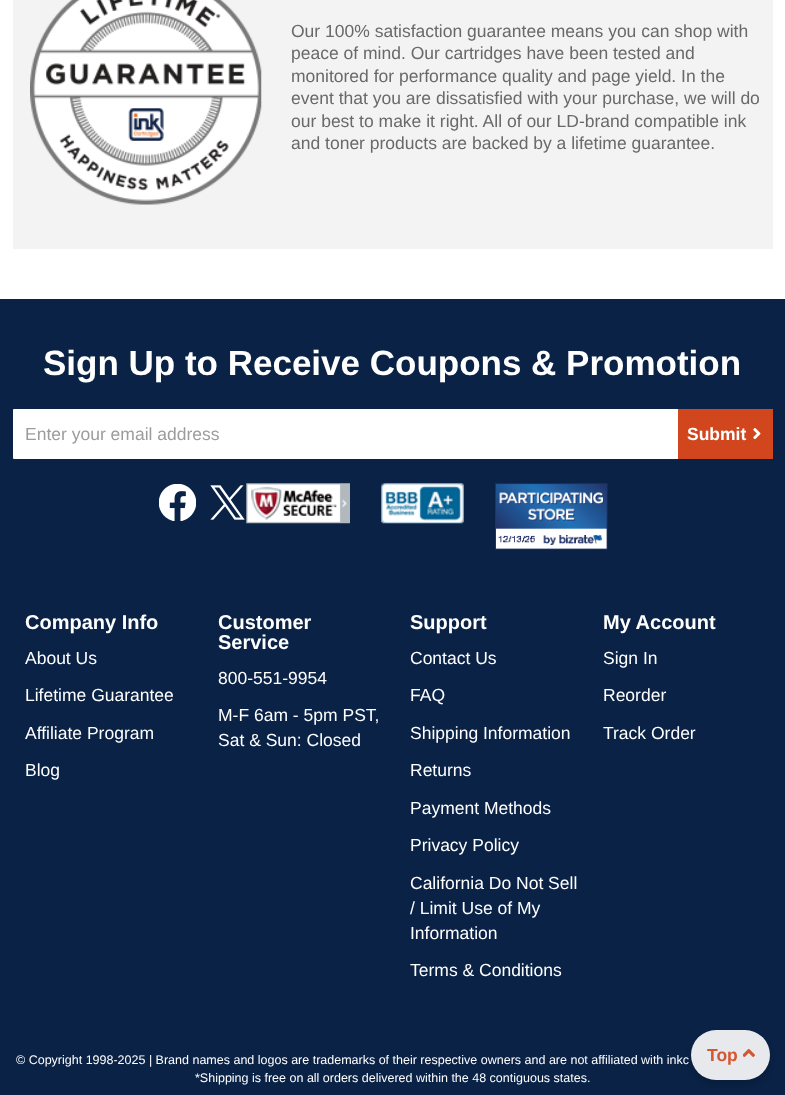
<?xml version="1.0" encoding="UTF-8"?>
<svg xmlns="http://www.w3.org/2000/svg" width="785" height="1095">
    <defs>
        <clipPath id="clip1"><path d="M 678 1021 H 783 V 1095 H 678 Z M 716 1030 H 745 C 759 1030 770 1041 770 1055 C 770 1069 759 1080 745 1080 H 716 C 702 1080 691 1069 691 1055 C 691 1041 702 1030 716 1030 Z" clip-rule="evenodd"/></clipPath>
        <filter id="blur1" x="-50%" y="-200%" width="200%" height="500%"><feGaussianBlur stdDeviation="4"/></filter>
    </defs>
    <rect width="100%" height="100%" fill="#FFFFFF"/>
    <rect x="13" y="0" width="760" height="249" fill="#F3F3F3"/>
    <image x="30" y="0" width="232" height="205" href="img_01.png"/>
    <text font-family="Liberation Sans" font-size="17.5" fill="#696969">
        <tspan x="291" y="37">Our 100% satisfaction guarantee means you can shop with</tspan>
        <tspan x="291" y="59">peace of mind. Our cartridges have been tested and</tspan>
        <tspan x="291" y="82">monitored for performance quality and page yield. In the</tspan>
        <tspan x="291" y="104">event that you are dissatisfied with your purchase, we will do</tspan>
        <tspan x="291" y="127">our best to make it right. All of our LD-brand compatible ink</tspan>
        <tspan x="291" y="149">and toner products are backed by a lifetime guarantee.</tspan>
    </text>
    <rect x="0" y="299" width="785" height="796" fill="#0A2246"/>
    <text x="43" y="375" font-family="Liberation Sans" font-size="35" font-weight="700" fill="#FFFFFF">Sign Up to Receive Coupons &amp; Promotion</text>
    <rect x="13" y="409" width="666" height="50" rx="1" fill="#FFFFFF"/>
    <text x="25" y="440" font-family="Liberation Sans" font-size="17.5" fill="#9C9C9C">Enter your email address</text>
    <rect x="678" y="409" width="95" height="50" fill="#D1461C"/>
    <text x="687" y="440" font-family="Liberation Sans" font-size="17.5" font-weight="700" fill="#FFFFFF">Submit</text>
    <image x="753" y="428" width="8" height="12" href="img_02.png"/>
    <image x="159" y="484" width="37" height="37" href="img_03.png"/>
    <image x="210" y="485" width="35" height="35" href="img_04.png"/>
    <image x="246" y="483" width="104" height="41" href="img_05.png"/>
    <image x="381" y="483" width="83" height="41" href="img_06.png"/>
    <image x="495" y="483" width="113" height="67" href="img_07.png"/>
    <text x="25" y="629" font-family="Liberation Sans" font-size="20" font-weight="700" fill="#FFFFFF">Company Info</text>
    <text x="25" y="664" font-family="Liberation Sans" font-size="17.5" fill="#FFFFFF">About Us</text>
    <text x="25" y="701" font-family="Liberation Sans" font-size="17.5" fill="#FFFFFF">Lifetime Guarantee</text>
    <text x="25" y="739" font-family="Liberation Sans" font-size="17.5" fill="#FFFFFF">Affiliate Program</text>
    <text x="25" y="776" font-family="Liberation Sans" font-size="17.5" fill="#FFFFFF">Blog</text>
    <text font-family="Liberation Sans" font-size="20" font-weight="700" fill="#FFFFFF">
        <tspan x="218" y="629">Customer</tspan>
        <tspan x="218" y="649">Service</tspan>
    </text>
    <text x="218" y="684" font-family="Liberation Sans" font-size="17.5" fill="#FFFFFF">800-551-9954</text>
    <text font-family="Liberation Sans" font-size="17.5" fill="#FFFFFF">
        <tspan x="218" y="721">M-F 6am - 5pm PST,</tspan>
        <tspan x="218" y="746">Sat &amp; Sun: Closed</tspan>
    </text>
    <text x="410" y="629" font-family="Liberation Sans" font-size="20" font-weight="700" fill="#FFFFFF">Support</text>
    <text x="410" y="664" font-family="Liberation Sans" font-size="17.5" fill="#FFFFFF">Contact Us</text>
    <text x="410" y="701" font-family="Liberation Sans" font-size="17.5" fill="#FFFFFF">FAQ</text>
    <text x="410" y="739" font-family="Liberation Sans" font-size="17.5" fill="#FFFFFF">Shipping Information</text>
    <text x="410" y="776" font-family="Liberation Sans" font-size="17.5" fill="#FFFFFF">Returns</text>
    <text x="410" y="814" font-family="Liberation Sans" font-size="17.5" fill="#FFFFFF">Payment Methods</text>
    <text x="410" y="851" font-family="Liberation Sans" font-size="17.5" fill="#FFFFFF">Privacy Policy</text>
    <text font-family="Liberation Sans" font-size="17.5" fill="#FFFFFF">
        <tspan x="410" y="889">California Do Not Sell</tspan>
        <tspan x="410" y="914">/ Limit Use of My</tspan>
        <tspan x="410" y="939">Information</tspan>
    </text>
    <text x="410" y="976" font-family="Liberation Sans" font-size="17.5" fill="#FFFFFF">Terms &amp; Conditions</text>
    <text x="603" y="629" font-family="Liberation Sans" font-size="20" font-weight="700" fill="#FFFFFF">My Account</text>
    <text x="603" y="664" font-family="Liberation Sans" font-size="17.5" fill="#FFFFFF">Sign In</text>
    <text x="603" y="701" font-family="Liberation Sans" font-size="17.5" fill="#FFFFFF">Reorder</text>
    <text x="603" y="739" font-family="Liberation Sans" font-size="17.5" fill="#FFFFFF">Track Order</text>
    <text x="16" y="1064" font-family="Liberation Sans" font-size="12.5" fill="#FFFFFF">© Copyright 1998-2025 | Brand names and logos are trademarks of their respective owners and are not affiliated with inkc</text>
    <text x="195" y="1082" font-family="Liberation Sans" font-size="12.5" fill="#FFFFFF">*Shipping is free on all orders delivered within the 48 contiguous states.</text>
    <g clip-path="url(#clip1)">
        <rect x="691" y="1034" width="79" height="50" rx="25" fill="#000000" fill-opacity="0.18" filter="url(#blur1)"/>
    </g>
    <rect x="691" y="1030" width="79" height="50" rx="25" fill="#FFFFFF" fill-opacity="0.9"/>
    <text x="707" y="1061" font-family="Liberation Sans" font-size="17.5" font-weight="700" fill="#D35731">Top</text>
    <image x="743" y="1048" width="12" height="9" href="img_08.png"/>
</svg>
